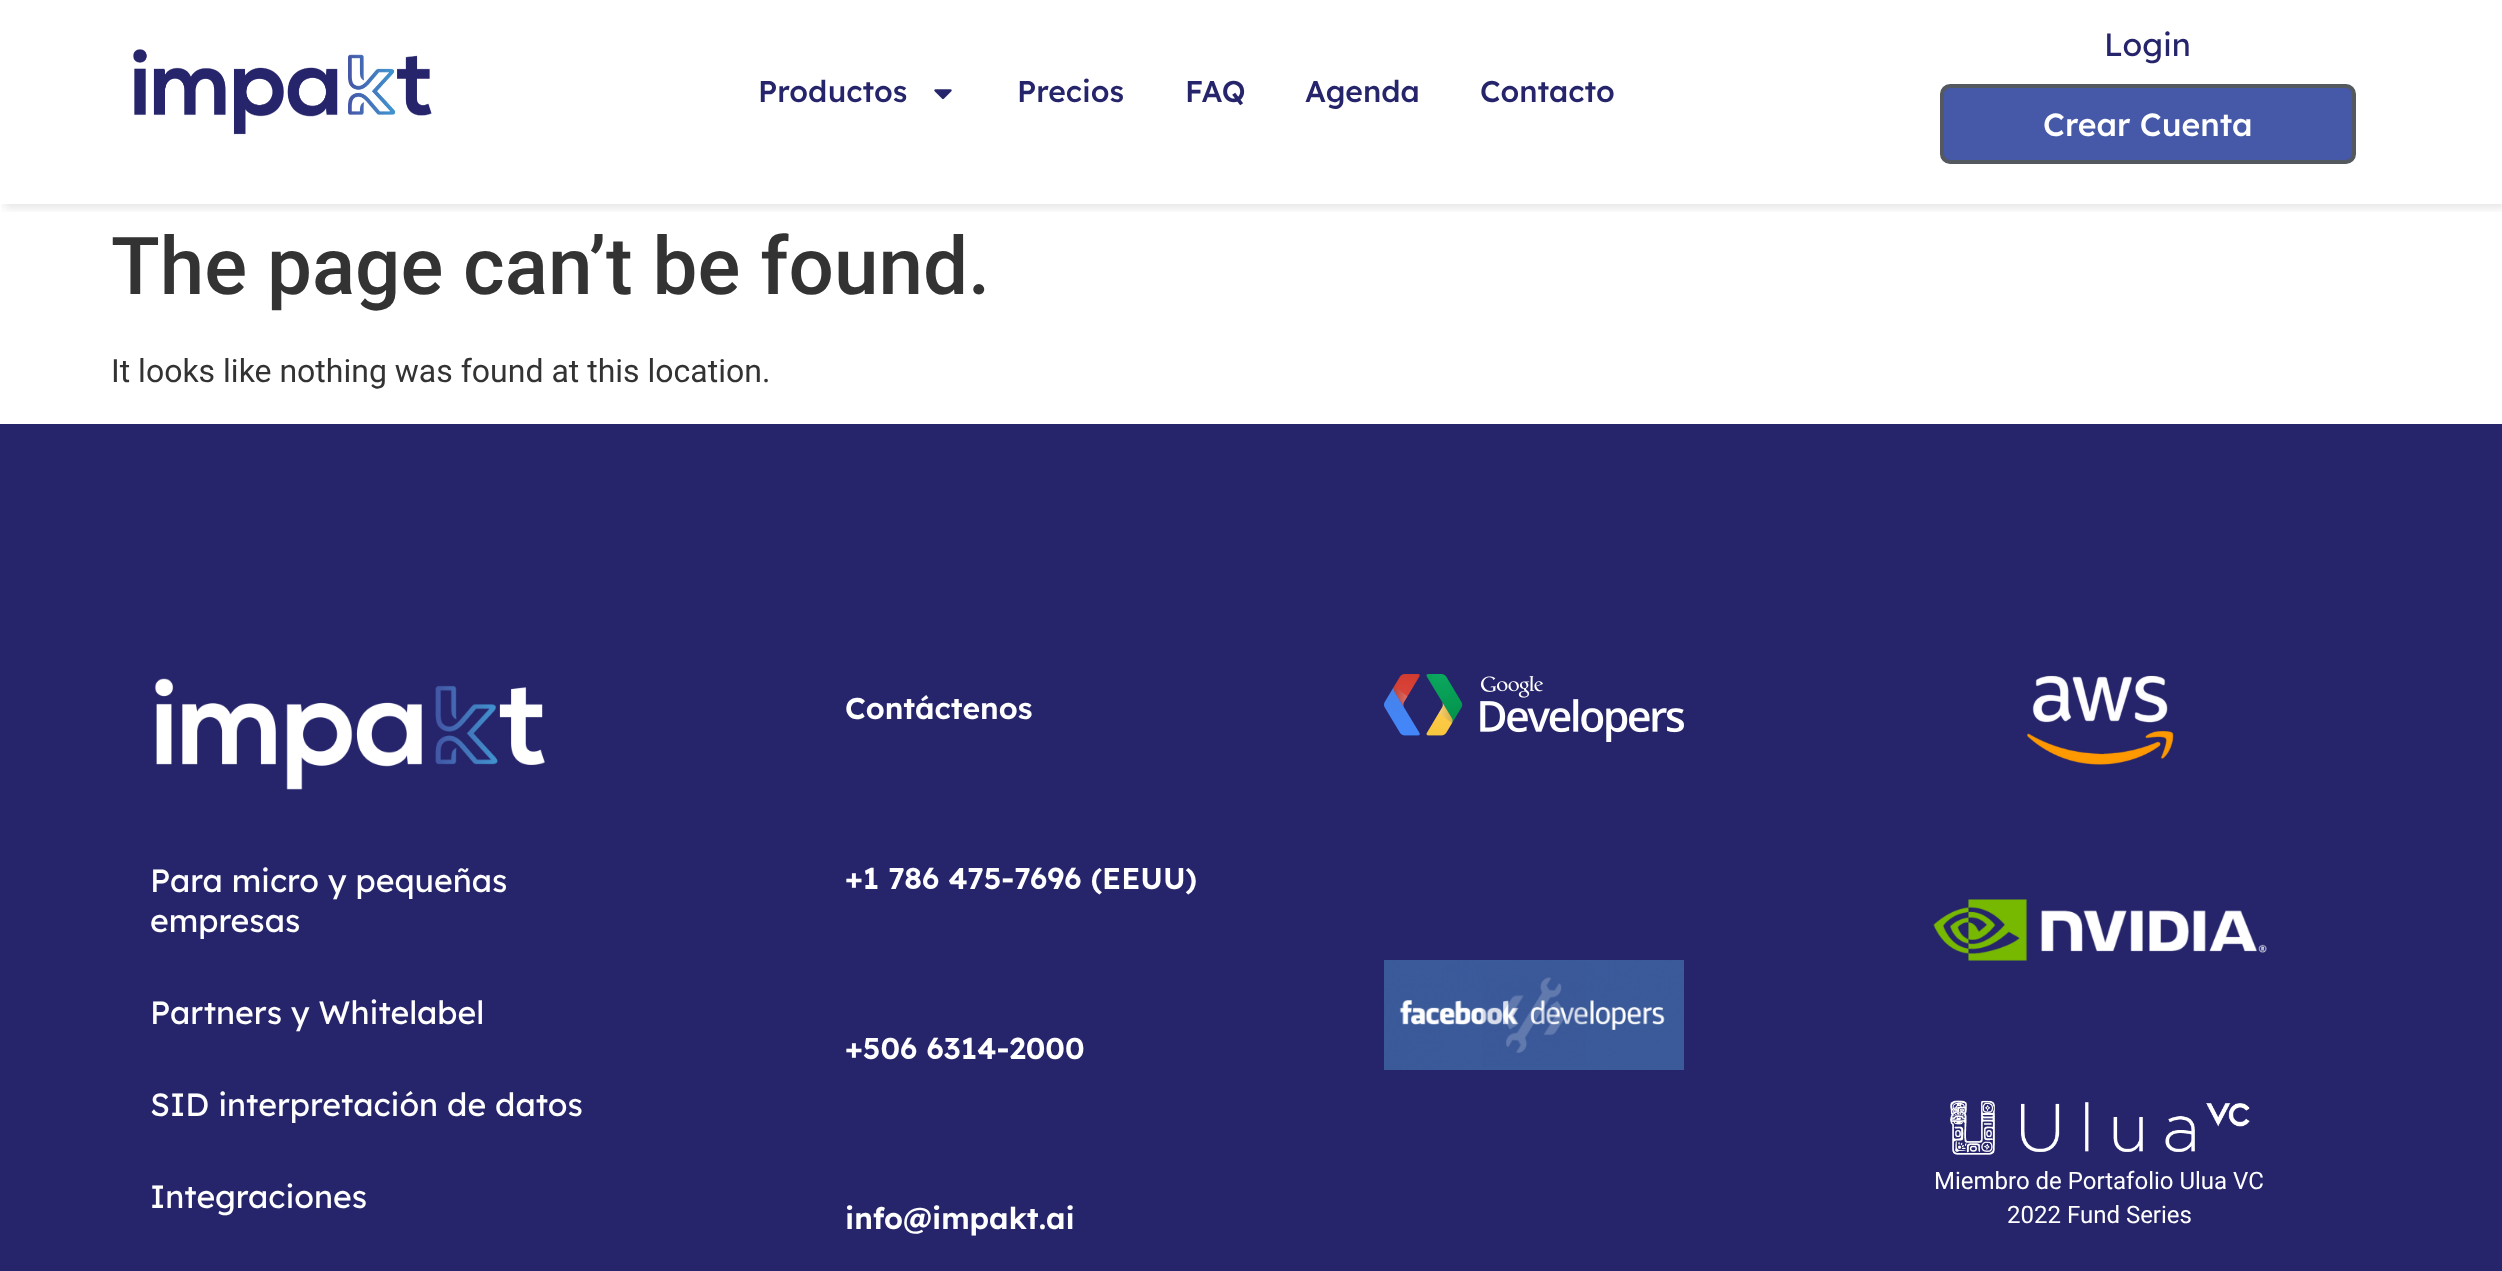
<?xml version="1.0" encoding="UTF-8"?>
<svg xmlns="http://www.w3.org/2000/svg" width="2502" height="1271">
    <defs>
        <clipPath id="clip1"><rect x="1" y="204" width="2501" height="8"/></clipPath>
        <filter id="blur1" x="-50%" y="-200%" width="200%" height="500%"><feGaussianBlur stdDeviation="5"/></filter>
        <linearGradient id="g1" gradientUnits="userSpaceOnUse" x1="1251" y1="424" x2="1251" y2="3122"><stop offset="0.47" stop-color="#26256B"/><stop offset="1" stop-color="#4658A8"/></linearGradient>
    </defs>
    <rect width="100%" height="100%" fill="#FFFFFF"/>
    <g clip-path="url(#clip1)">
        <rect x="4" y="4" width="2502" height="204" fill="#000000" fill-opacity="0.1" filter="url(#blur1)"/>
    </g>
    <image x="133" y="49" width="299" height="86" href="img_01.png"/>
    <text x="758" y="102" font-family="Lexend" font-size="30" font-weight="500" fill="#26256B">Productos</text>
    <image x="934" y="89" width="18" height="11" href="img_02.png"/>
    <text x="1017" y="102" font-family="Lexend" font-size="30" font-weight="500" fill="#26256B">Precios</text>
    <text x="1185" y="102" font-family="Lexend" font-size="30" font-weight="500" fill="#26256B">FAQ</text>
    <text x="1305" y="102" font-family="Lexend" font-size="30" font-weight="500" fill="#26256B">Agenda</text>
    <text x="1480" y="102" font-family="Lexend" font-size="30" font-weight="500" fill="#26256B">Contacto</text>
    <text x="2104" y="56" font-family="Lexend" font-size="32" fill="#26256B">Login</text>
    <rect x="1942" y="86" width="412" height="76" rx="8" fill="#4658A8" stroke="#54595F" stroke-width="4"/>
    <text x="2043" y="136" font-family="Lexend" font-size="32" font-weight="500" fill="#FFFFFF">Crear Cuenta</text>
    <text x="111" y="294" font-family="Roboto" font-size="80" font-weight="500" fill="#333333">The page can’t be found.</text>
    <text x="111" y="382" font-family="Roboto" font-size="32" fill="#333333">It looks like nothing was found at this location.</text>
    <rect x="0" y="424" width="2502" height="847" fill="url(#g1)"/>
    <image x="154" y="678" width="391" height="112" href="img_03.png"/>
    <text font-family="Lexend Deca" font-size="32" fill="#FFFFFF">
        <tspan x="150" y="892">Para micro y pequeñas</tspan>
        <tspan x="150" y="932">empresas</tspan>
    </text>
    <text x="150" y="1024" font-family="Lexend Deca" font-size="32" fill="#FFFFFF">Partners y Whitelabel</text>
    <text x="150" y="1116" font-family="Lexend Deca" font-size="32" fill="#FFFFFF">SID interpretación de datos</text>
    <text x="150" y="1208" font-family="Lexend Deca" font-size="32" fill="#FFFFFF">Integraciones</text>
    <text x="845" y="719" font-family="Lexend" font-size="30" font-weight="600" fill="#FFFFFF">Contáctenos</text>
    <text x="845" y="889" font-family="Lexend" font-size="30" font-weight="600" fill="#FFFFFF">+1 786 475-7696 (EEUU)</text>
    <text x="845" y="1059" font-family="Lexend" font-size="30" font-weight="600" fill="#FFFFFF">+506 6314-2000</text>
    <text x="845" y="1229" font-family="Lexend" font-size="30" font-weight="600" fill="#FFFFFF">info@impakt.ai</text>
    <image x="1384" y="674" width="300" height="68" href="img_04.png"/>
    <image x="1384" y="960" width="300" height="110" href="img_05.png"/>
    <image x="2027" y="675" width="147" height="90" href="img_06.png"/>
    <image x="1933" y="899" width="334" height="62" href="img_07.png"/>
    <image x="1950" y="1100" width="300" height="55" href="img_08.png"/>
    <text x="1934" y="1189" font-family="Roboto" font-size="24" fill="#FFFFFF">Miembro de Portafolio Ulua VC</text>
    <text x="2007" y="1223" font-family="Roboto" font-size="24" fill="#FFFFFF">2022 Fund Series</text>
</svg>
